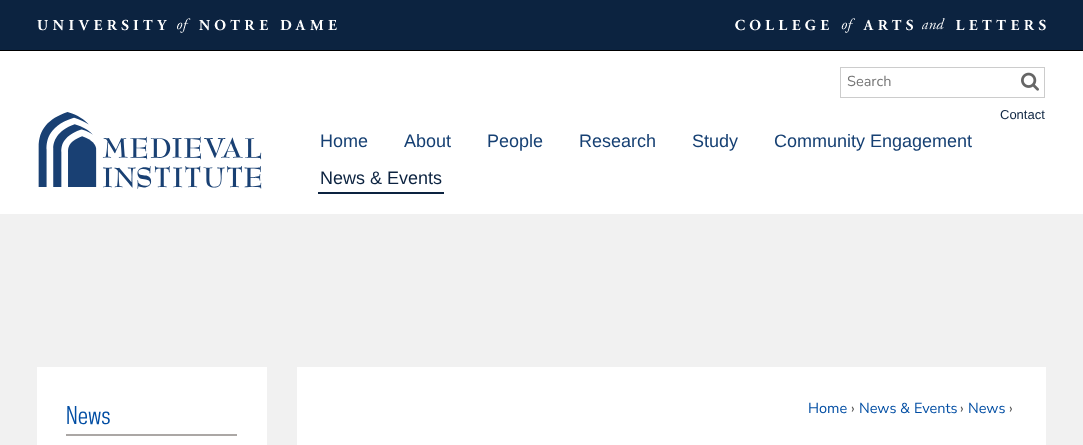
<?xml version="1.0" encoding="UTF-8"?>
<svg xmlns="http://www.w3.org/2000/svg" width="1083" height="445">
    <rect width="100%" height="100%" fill="#F1F1F1"/>
    <rect x="0" y="0" width="1083" height="50" fill="#0C2340"/>
    <rect x="0" y="50" width="1083" height="1" fill="#000000"/>
    <image x="37" y="18" width="300" height="15" href="img_01.png"/>
    <image x="735" y="18" width="311" height="15" href="img_02.png"/>
    <rect x="0" y="51" width="1083" height="163" fill="#FFFFFF"/>
    <rect x="840.5" y="67.5" width="204" height="30" fill="none" stroke="#CCCCCC"/>
    <text x="847" y="86" font-family="Nunito Sans" font-size="14.5" font-weight="200" fill="#757575">Search</text>
    <image x="1021" y="72" width="18" height="19" href="img_03.png"/>
    <text x="1000" y="119" font-family="Liberation Sans" font-size="13" fill="#0C2340">Contact</text>
    <image x="38" y="112" width="224" height="77" href="img_04.png"/>
    <text x="320" y="147" font-family="Liberation Sans" font-size="18" fill="#164073">Home</text>
    <text x="404" y="147" font-family="Liberation Sans" font-size="18" fill="#164073">About</text>
    <text x="487" y="147" font-family="Liberation Sans" font-size="18" fill="#164073">People</text>
    <text x="579" y="147" font-family="Liberation Sans" font-size="18" fill="#164073">Research</text>
    <text x="692" y="147" font-family="Liberation Sans" font-size="18" fill="#164073">Study</text>
    <text x="774" y="147" font-family="Liberation Sans" font-size="18" fill="#164073">Community Engagement</text>
    <text x="320" y="184" font-family="Liberation Sans" font-size="18" fill="#0C2340">News &amp; Events</text>
    <rect x="318" y="192" width="126" height="2" fill="#0C2340"/>
    <rect x="37" y="367" width="230" height="78" fill="#FFFFFF"/>
    <rect x="66" y="434" width="171" height="2" fill="#ABA7A5"/>
    <text x="66" y="424" font-family="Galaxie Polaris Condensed" font-size="23" fill="#004DA3">News</text>
    <rect x="297" y="367" width="749" height="78" fill="#FFFFFF"/>
    <text x="808" y="413" font-family="Nunito Sans" font-size="14.5" font-weight="200" fill="#004DA3">Home</text>
    <text x="851" y="413" font-family="Nunito Sans" font-size="14.5" font-weight="200" fill="#555555">›</text>
    <text x="859" y="413" font-family="Nunito Sans" font-size="14.5" font-weight="200" fill="#004DA3">News &amp; Events</text>
    <text x="960" y="413" font-family="Nunito Sans" font-size="14.5" font-weight="200" fill="#555555">›</text>
    <text x="968" y="413" font-family="Nunito Sans" font-size="14.5" font-weight="200" fill="#004DA3">News</text>
    <text x="1009" y="413" font-family="Nunito Sans" font-size="14.5" font-weight="200" fill="#555555">›</text>
</svg>
